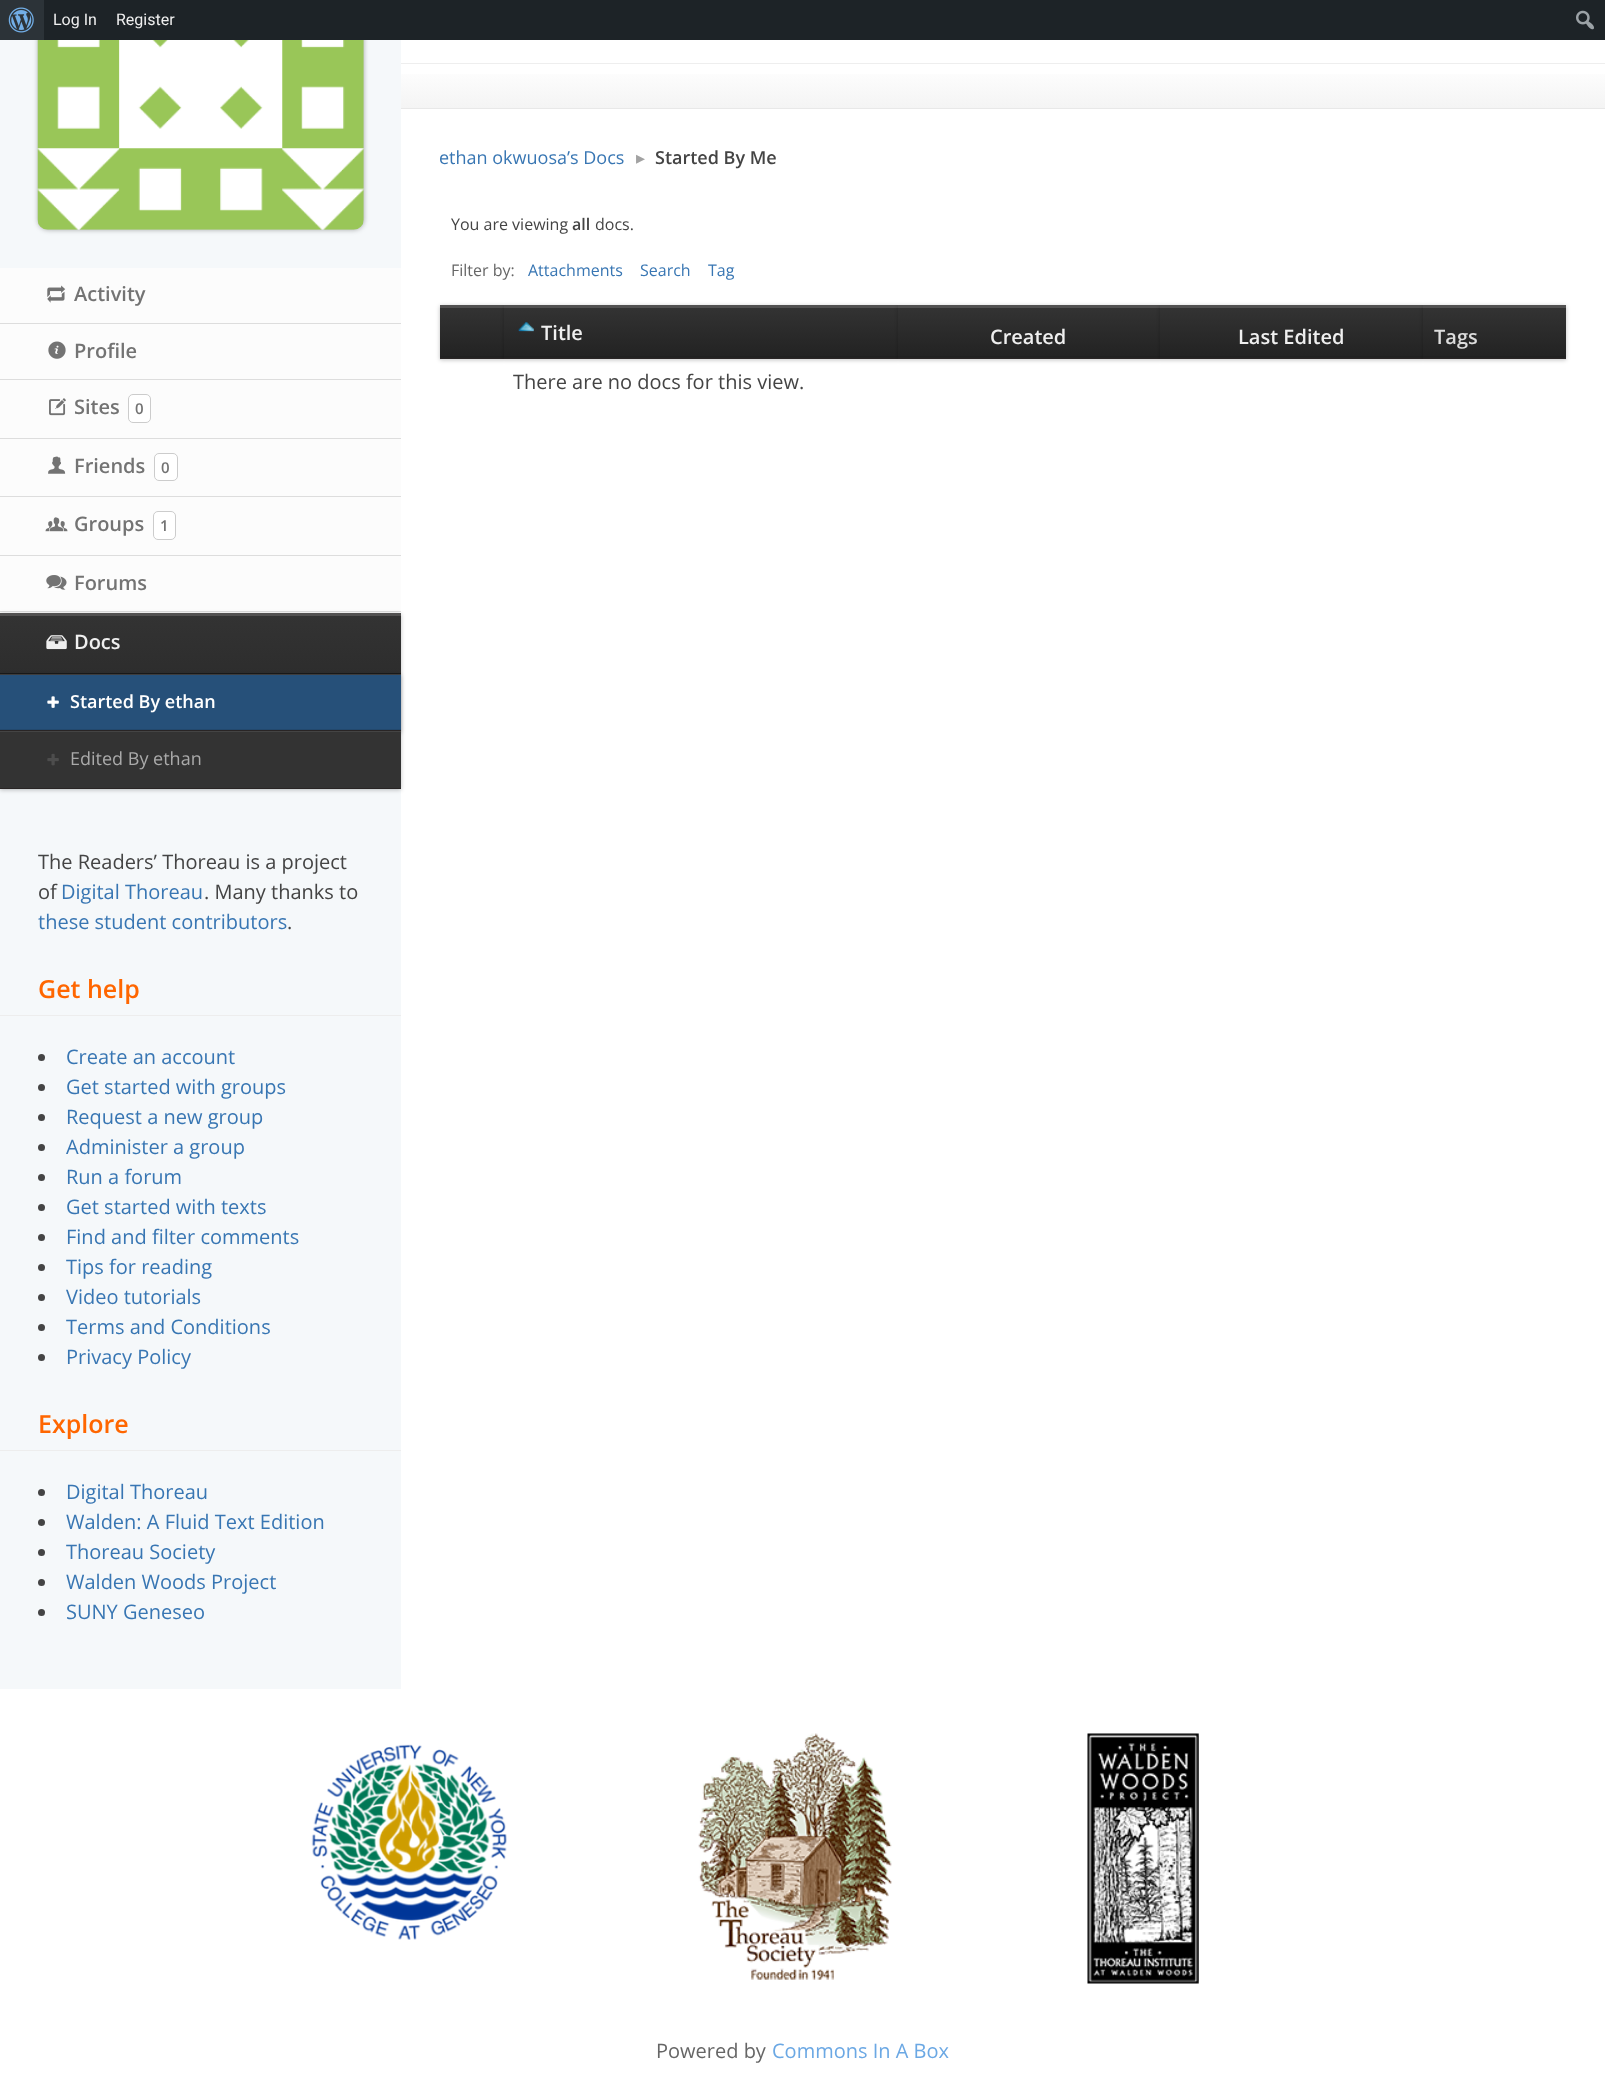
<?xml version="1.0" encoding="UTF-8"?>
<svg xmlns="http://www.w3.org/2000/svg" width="1605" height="2090">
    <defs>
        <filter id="blur1" x="-50%" y="-200%" width="200%" height="500%"><feGaussianBlur stdDeviation="2.5"/></filter>
        <filter id="blur2" x="-50%" y="-200%" width="200%" height="500%"><feGaussianBlur stdDeviation="2"/></filter>
        <linearGradient id="g1" gradientUnits="userSpaceOnUse" x1="201" y1="615" x2="201" y2="788"><stop offset="0" stop-color="#333333"/><stop offset="1" stop-color="#222222"/></linearGradient>
        <linearGradient id="g2" gradientUnits="userSpaceOnUse" x1="1003" y1="64" x2="1003" y2="108"><stop offset="0" stop-color="#FFFFFF"/><stop offset="1" stop-color="#F4F4F4"/></linearGradient>
        <linearGradient id="g3" gradientUnits="userSpaceOnUse" x1="472" y1="308" x2="472" y2="358"><stop offset="0" stop-color="#333333"/><stop offset="1" stop-color="#222222"/></linearGradient>
        <linearGradient id="g4" gradientUnits="userSpaceOnUse" x1="701" y1="307" x2="701" y2="358"><stop offset="0" stop-color="#333333"/><stop offset="1" stop-color="#222222"/></linearGradient>
        <linearGradient id="g5" gradientUnits="userSpaceOnUse" x1="1029" y1="308" x2="1029" y2="358"><stop offset="0" stop-color="#333333"/><stop offset="1" stop-color="#222222"/></linearGradient>
        <linearGradient id="g6" gradientUnits="userSpaceOnUse" x1="1291" y1="308" x2="1291" y2="358"><stop offset="0" stop-color="#333333"/><stop offset="1" stop-color="#222222"/></linearGradient>
        <linearGradient id="g7" gradientUnits="userSpaceOnUse" x1="1494" y1="308" x2="1494" y2="358"><stop offset="0" stop-color="#333333"/><stop offset="1" stop-color="#222222"/></linearGradient>
    </defs>
    <rect width="100%" height="100%" fill="#FFFFFF"/>
    <rect x="0" y="40" width="401" height="1649" fill="#F5F8FA"/>
    <rect x="38" y="-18" width="326" height="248" rx="10" fill="#000000" fill-opacity="0.3" filter="url(#blur1)"/>
    <rect x="44" y="0" width="1561" height="40" fill="#1D2327"/>
    <rect x="0" y="0" width="44" height="40" fill="#2C3338"/>
    <image x="8" y="7" width="26" height="26" href="img_01.png"/>
    <text x="53" y="25" font-family="Roboto" font-size="16" fill="#EFEFEF">Log In</text>
    <text x="116" y="25" font-family="Roboto" font-size="16" fill="#EFEFEF">Register</text>
    <image x="1576" y="10" width="18" height="20" href="img_02.png"/>
    <image x="37" y="40" width="327" height="190" href="img_03.png"/>
    <rect x="0" y="268" width="401" height="55" fill="#FCFCFC"/>
    <rect x="0" y="323" width="401" height="1" fill="#DDDDDD"/>
    <image x="47" y="285" width="19" height="18" href="img_04.png"/>
    <text x="74" y="301" font-family="Open Sans" font-size="20" font-weight="600" fill="#737373">Activity</text>
    <rect x="0" y="324" width="401" height="55" fill="#FCFCFC"/>
    <rect x="0" y="379" width="401" height="1" fill="#DDDDDD"/>
    <image x="48" y="341" width="18" height="18" href="img_05.png"/>
    <text x="74" y="358" font-family="Open Sans" font-size="20" font-weight="600" fill="#737373">Profile</text>
    <rect x="0" y="380" width="401" height="58" fill="#FCFCFC"/>
    <rect x="0" y="438" width="401" height="1" fill="#DDDDDD"/>
    <image x="49" y="398" width="17" height="18" href="img_06.png"/>
    <text x="74" y="414" font-family="Open Sans" font-size="20" font-weight="600" fill="#737373">Sites</text>
    <rect x="128.5" y="394.5" width="22" height="28" rx="4.5" fill="#FFFFFF" stroke="#CCCCCC"/>
    <text x="135" y="414" font-family="Open Sans" font-size="15" font-weight="600" fill="#737373">0</text>
    <rect x="0" y="439" width="401" height="116" fill="#FCFCFC"/>
    <rect x="0" y="496" width="401" height="1" fill="#DDDDDD"/>
    <image x="48" y="456" width="18" height="18" href="img_07.png"/>
    <text x="74" y="473" font-family="Open Sans" font-size="20" font-weight="600" fill="#737373">Friends</text>
    <rect x="154.5" y="453.5" width="23" height="27" rx="4.5" fill="#FFFFFF" stroke="#CCCCCC"/>
    <text x="161" y="473" font-family="Open Sans" font-size="15" font-weight="600" fill="#737373">0</text>
    <rect x="0" y="555" width="401" height="1" fill="#DDDDDD"/>
    <image x="45" y="517" width="23" height="15" href="img_08.png"/>
    <text x="74" y="531" font-family="Open Sans" font-size="20" font-weight="600" fill="#737373">Groups</text>
    <rect x="153.5" y="511.5" width="22" height="28" rx="4.5" fill="#FFFFFF" stroke="#CCCCCC"/>
    <text x="160" y="531" font-family="Open Sans" font-size="15" font-weight="600" fill="#737373">1</text>
    <rect x="0" y="556" width="401" height="57" fill="#FCFCFC"/>
    <rect x="0" y="611" width="401" height="1" fill="#DDDDDD"/>
    <image x="46" y="575" width="21" height="15" href="img_09.png"/>
    <text x="74" y="590" font-family="Open Sans" font-size="20" font-weight="600" fill="#737373">Forums</text>
    <rect x="0" y="614" width="401" height="176" fill="#000000" fill-opacity="0.25" filter="url(#blur2)"/>
    <rect x="0" y="616" width="401" height="57" fill="url(#g1)"/>
    <rect x="0" y="613" width="401" height="3" fill="#525151"/>
    <rect x="0" y="788" width="401" height="1" fill="#292525"/>
    <image x="46" y="635" width="21" height="15" href="img_10.png"/>
    <text x="74" y="649" font-family="Open Sans" font-size="20" font-weight="600" fill="#EFEFEF">Docs</text>
    <rect x="0" y="673" width="401" height="1" fill="#1A1A1A"/>
    <rect x="0" y="675" width="401" height="58" fill="#000000" fill-opacity="0.25" filter="url(#blur2)"/>
    <rect x="0" y="675" width="401" height="54" fill="#265079"/>
    <rect x="0" y="729" width="401" height="1" fill="#22486D"/>
    <rect x="0" y="674" width="401" height="1" fill="#3E3D3D"/>
    <rect x="0" y="730" width="401" height="1" fill="#292525"/>
    <image x="47" y="696" width="12" height="12" href="img_11.png"/>
    <text x="70" y="708" font-family="Open Sans" font-size="18" font-weight="600" fill="#FFFFFF">Started By ethan</text>
    <rect x="0" y="732" width="401" height="56" fill="#333333"/>
    <rect x="0" y="731" width="401" height="1" fill="#444444"/>
    <image x="47" y="753" width="12" height="13" href="img_12.png"/>
    <text x="70" y="765" font-family="Open Sans" font-size="18" fill="#AAAAAA">Edited By ethan</text>
    <text font-family="Open Sans" font-size="20" fill="#444444">
        <tspan x="38" y="869">The Readers’ Thoreau is a project</tspan>
        <tspan x="38" y="899">of</tspan>
    </text>
    <text x="61" y="899" font-family="Open Sans" font-size="20" fill="#3876B3">Digital Thoreau</text>
    <text x="204" y="899" font-family="Open Sans" font-size="20" fill="#444444">. Many thanks to</text>
    <text x="38" y="929" font-family="Open Sans" font-size="20" fill="#3876B3">these student contributors</text>
    <text x="287" y="929" font-family="Open Sans" font-size="20" fill="#444444">.</text>
    <rect x="0" y="1015" width="401" height="1" fill="#EDEDED"/>
    <text x="38" y="998" font-family="Open Sans" font-size="25" font-weight="600" fill="#FF6600">Get help</text>
    <circle cx="41.5" cy="1057.5" r="3.5" fill="#444444"/>
    <text x="66" y="1064" font-family="Open Sans" font-size="20" fill="#3876B3">Create an account</text>
    <circle cx="41.5" cy="1087.5" r="3.5" fill="#444444"/>
    <text x="66" y="1094" font-family="Open Sans" font-size="20" fill="#3876B3">Get started with groups</text>
    <circle cx="41.5" cy="1117.5" r="3.5" fill="#444444"/>
    <text x="66" y="1124" font-family="Open Sans" font-size="20" fill="#3876B3">Request a new group</text>
    <circle cx="41.5" cy="1147.5" r="3.5" fill="#444444"/>
    <text x="66" y="1154" font-family="Open Sans" font-size="20" fill="#3876B3">Administer a group</text>
    <circle cx="41.5" cy="1177.5" r="3.5" fill="#444444"/>
    <text x="66" y="1184" font-family="Open Sans" font-size="20" fill="#3876B3">Run a forum</text>
    <circle cx="41.5" cy="1207.5" r="3.5" fill="#444444"/>
    <text x="66" y="1214" font-family="Open Sans" font-size="20" fill="#3876B3">Get started with texts</text>
    <circle cx="41.5" cy="1237.5" r="3.5" fill="#444444"/>
    <text x="66" y="1244" font-family="Open Sans" font-size="20" fill="#3876B3">Find and filter comments</text>
    <circle cx="41.5" cy="1267.5" r="3.5" fill="#444444"/>
    <text x="66" y="1274" font-family="Open Sans" font-size="20" fill="#3876B3">Tips for reading</text>
    <circle cx="41.5" cy="1297.5" r="3.5" fill="#444444"/>
    <text x="66" y="1304" font-family="Open Sans" font-size="20" fill="#3876B3">Video tutorials</text>
    <circle cx="41.5" cy="1327.5" r="3.5" fill="#444444"/>
    <text x="66" y="1334" font-family="Open Sans" font-size="20" fill="#3876B3">Terms and Conditions</text>
    <circle cx="41.5" cy="1357.5" r="3.5" fill="#444444"/>
    <text x="66" y="1364" font-family="Open Sans" font-size="20" fill="#3876B3">Privacy Policy</text>
    <rect x="0" y="1450" width="401" height="1" fill="#EDEDED"/>
    <text x="38" y="1433" font-family="Open Sans" font-size="25" font-weight="600" fill="#FF6600">Explore</text>
    <circle cx="41.5" cy="1492.5" r="3.5" fill="#444444"/>
    <text x="66" y="1499" font-family="Open Sans" font-size="20" fill="#3876B3">Digital Thoreau</text>
    <circle cx="41.5" cy="1522.5" r="3.5" fill="#444444"/>
    <text x="66" y="1529" font-family="Open Sans" font-size="20" fill="#3876B3">Walden: A Fluid Text Edition</text>
    <circle cx="41.5" cy="1552.5" r="3.5" fill="#444444"/>
    <text x="66" y="1559" font-family="Open Sans" font-size="20" fill="#3876B3">Thoreau Society</text>
    <circle cx="41.5" cy="1582.5" r="3.5" fill="#444444"/>
    <text x="66" y="1589" font-family="Open Sans" font-size="20" fill="#3876B3">Walden Woods Project</text>
    <circle cx="41.5" cy="1612.5" r="3.5" fill="#444444"/>
    <text x="66" y="1619" font-family="Open Sans" font-size="20" fill="#3876B3">SUNY Geneseo</text>
    <rect x="401" y="74" width="1204" height="34" fill="url(#g2)"/>
    <rect x="401" y="63" width="1204" height="1" fill="#EEEEEE"/>
    <rect x="401" y="108" width="1204" height="1" fill="#E8E8E8"/>
    <text x="439" y="164" font-family="Open Sans" font-size="18" fill="#3876B3">ethan okwuosa’s Docs</text>
    <text x="636" y="164" font-family="DejaVu Sans" font-size="18" fill="#A2A2A2">▸</text>
    <text x="655" y="164" font-family="Open Sans" font-size="18" font-weight="600" fill="#444444">Started By Me</text>
    <text x="451" y="230" font-family="Open Sans" font-size="16" fill="#444444">You are viewing</text>
    <text x="572" y="230" font-family="Open Sans" font-size="16" font-weight="600" fill="#444444">all</text>
    <text x="595" y="230" font-family="Open Sans" font-size="16" fill="#444444">docs.</text>
    <text x="451" y="276" font-family="Open Sans" font-size="16" fill="#666666">Filter by:</text>
    <text x="528" y="276" font-family="Open Sans" font-size="16" fill="#3876B3">Attachments</text>
    <text x="640" y="276" font-family="Open Sans" font-size="16" fill="#3876B3">Search</text>
    <text x="708" y="276" font-family="Open Sans" font-size="16" fill="#3876B3">Tag</text>
    <rect x="440" y="306" width="64" height="54" fill="#000000" fill-opacity="0.25" filter="url(#blur2)"/>
    <rect x="440" y="308" width="64" height="50" fill="url(#g3)"/>
    <rect x="440" y="356" width="64" height="1" fill="#202020"/>
    <rect x="440" y="305" width="64" height="3" fill="#525151"/>
    <rect x="440" y="358" width="64" height="1" fill="#292525"/>
    <rect x="504" y="306" width="394" height="54" fill="#000000" fill-opacity="0.25" filter="url(#blur2)"/>
    <rect x="504" y="308" width="394" height="50" fill="url(#g4)"/>
    <rect x="504" y="356" width="394" height="1" fill="#202020"/>
    <rect x="504" y="305" width="394" height="3" fill="#525151"/>
    <rect x="504" y="358" width="394" height="1" fill="#292525"/>
    <image x="518" y="322" width="16" height="10" href="img_13.png"/>
    <text x="541" y="340" font-family="Open Sans" font-size="20" font-weight="600" fill="#EFEFEF">Title</text>
    <rect x="898" y="306" width="262" height="54" fill="#000000" fill-opacity="0.25" filter="url(#blur2)"/>
    <rect x="898" y="308" width="262" height="50" fill="url(#g5)"/>
    <rect x="898" y="356" width="262" height="1" fill="#202020"/>
    <rect x="898" y="305" width="262" height="3" fill="#525151"/>
    <rect x="898" y="358" width="262" height="1" fill="#292525"/>
    <text x="990" y="344" font-family="Open Sans" font-size="20" font-weight="600" fill="#EFEFEF">Created</text>
    <rect x="1160" y="306" width="263" height="54" fill="#000000" fill-opacity="0.25" filter="url(#blur2)"/>
    <rect x="1160" y="308" width="263" height="50" fill="url(#g6)"/>
    <rect x="1160" y="356" width="263" height="1" fill="#202020"/>
    <rect x="1160" y="305" width="263" height="3" fill="#525151"/>
    <rect x="1160" y="358" width="263" height="1" fill="#292525"/>
    <text x="1238" y="344" font-family="Open Sans" font-size="20" font-weight="600" fill="#EFEFEF">Last Edited</text>
    <rect x="1423" y="306" width="143" height="54" fill="#000000" fill-opacity="0.25" filter="url(#blur2)"/>
    <rect x="1423" y="308" width="143" height="50" fill="url(#g7)"/>
    <rect x="1423" y="356" width="143" height="1" fill="#202020"/>
    <rect x="1423" y="305" width="143" height="3" fill="#525151"/>
    <rect x="1423" y="358" width="143" height="1" fill="#292525"/>
    <text x="1434" y="344" font-family="Open Sans" font-size="20" font-weight="600" fill="#DDDDDD">Tags</text>
    <rect x="440" y="359" width="1126" height="1" fill="#DDDDDD"/>
    <text x="513" y="389" font-family="Open Sans" font-size="20" fill="#444444">There are no docs for this view.</text>
    <image x="311" y="1744" width="196" height="196" href="img_14.png"/>
    <image x="698" y="1733" width="194" height="247" href="img_15.png"/>
    <image x="1087" y="1733" width="112" height="251" href="img_16.png"/>
    <text x="656" y="2058" font-family="Open Sans" font-size="20" fill="#666666">Powered by</text>
    <text x="772" y="2058" font-family="Open Sans" font-size="20" fill="#6BA8E4">Commons In A Box</text>
</svg>
